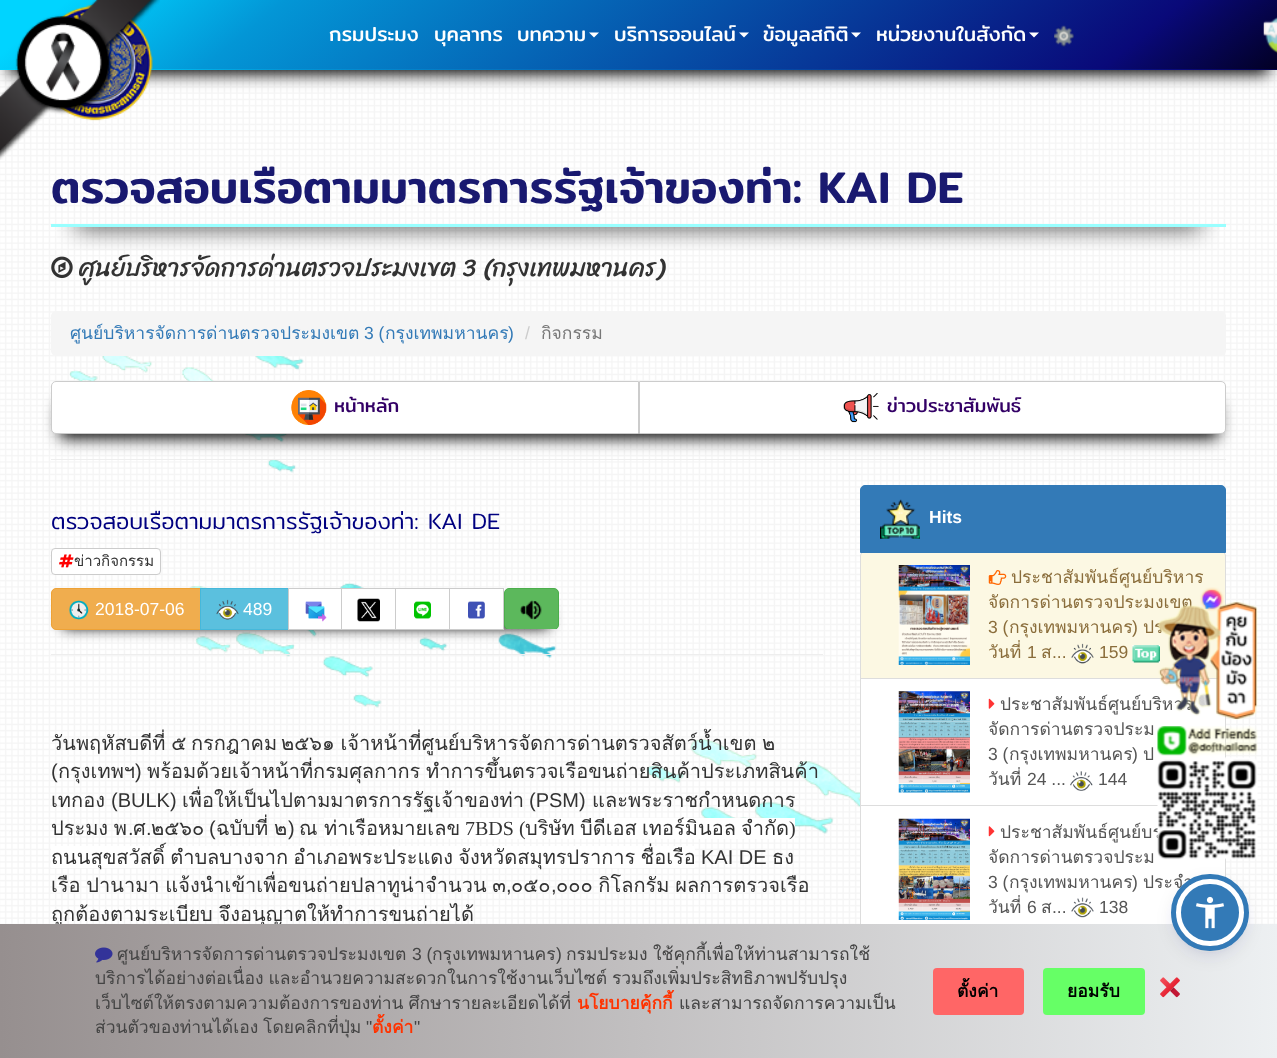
<?xml version="1.0" encoding="UTF-8"?>
<svg xmlns="http://www.w3.org/2000/svg" width="1277" height="1058">
    <defs>
        <filter id="blur1" x="-50%" y="-200%" width="200%" height="500%"><feGaussianBlur stdDeviation="8"/></filter>
        <linearGradient id="g1" gradientUnits="userSpaceOnUse" x1="909" y1="368" x2="369" y2="-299"><stop offset="0" stop-color="#020024"/><stop offset="0.13" stop-color="#090979"/><stop offset="0.79" stop-color="#0396D6"/><stop offset="0.95" stop-color="#00D4FF"/></linearGradient>
        <linearGradient id="g2" gradientUnits="userSpaceOnUse" x1="909" y1="436" x2="369" y2="-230"><stop offset="0" stop-color="#020024"/><stop offset="0.13" stop-color="#090979"/><stop offset="0.79" stop-color="#0396D6"/><stop offset="0.95" stop-color="#00D4FF"/></linearGradient>
        <linearGradient id="g3" gradientUnits="userSpaceOnUse" x1="0" y1="991" x2="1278" y2="991"><stop offset="0" stop-color="#968F8F"/><stop offset="1" stop-color="#EDF0F2"/></linearGradient>
        <clipPath id="clip1"><rect x="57" y="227" width="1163" height="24"/></clipPath>
        <filter id="blur2" x="-50%" y="-200%" width="200%" height="500%"><feGaussianBlur stdDeviation="12.5"/></filter>
        <filter id="blur3" x="-50%" y="-200%" width="200%" height="500%"><feGaussianBlur stdDeviation="7"/></filter>
        <clipPath id="clip2"><rect x="504" y="588" width="56" height="41"/></clipPath>
        <filter id="blur4" x="-50%" y="-200%" width="200%" height="500%"><feGaussianBlur stdDeviation="2.5"/></filter>
        <filter id="blur5" x="-50%" y="-200%" width="200%" height="500%"><feGaussianBlur stdDeviation="9.5"/></filter>
    </defs>
    <rect width="100%" height="100%" fill="#FFFFFF"/>
    <image x="0" y="70" width="1277" height="854" href="img_01.png"/>
    <rect x="9" y="21" width="1260" height="53" fill="#000000" filter="url(#blur1)"/>
    <rect x="0" y="0" width="1277" height="69" fill="url(#g1)"/>
    <rect x="0" y="69" width="1277" height="1" fill="url(#g2)"/>
    <image x="58" y="4" width="95" height="117" href="img_02.png"/>
    <image x="0" y="0" width="160" height="160" href="img_03.png"/>
    <text x="329" y="41" font-family="Mitr" font-size="20" fill="#FFFFFF">กรมประมง</text>
    <text x="434" y="41" font-family="Mitr" font-size="20" fill="#FFFFFF">บุคลากร</text>
    <text x="517" y="41" font-family="Mitr" font-size="20" fill="#FFFFFF">บทความ</text>
    <path d="M 589 32.5 H 599 L 594 37.5 Z" fill="#FFFFFF"/>
    <text x="614" y="41" font-family="Mitr" font-size="20" fill="#FFFFFF">บริการออนไลน์</text>
    <path d="M 739 32.5 H 749 L 744 37.5 Z" fill="#FFFFFF"/>
    <text x="763" y="41" font-family="Mitr" font-size="20" fill="#FFFFFF">ข้อมูลสถิติ</text>
    <path d="M 851 32.5 H 861 L 856 37.5 Z" fill="#FFFFFF"/>
    <text x="876" y="41" font-family="Mitr" font-size="20" fill="#FFFFFF">หน่วยงานในสังกัด</text>
    <path d="M 1029 32.5 H 1039 L 1034 37.5 Z" fill="#FFFFFF"/>
    <image x="1054" y="25" width="20" height="22" href="img_04.png"/>
    <image x="1263" y="17" width="14" height="36" href="img_05.png"/>
    <text x="51" y="921" word-spacing="-1" font-family="Loma" font-size="20" fill="#333333">ถูกต้องตามระเบียบ จึงอนุญาตให้ทำการขนถ่ายได้</text>
    <path d="M 865 551.5 H 1221 C 1223.5 551.5 1225.5 553.5 1225.5 556 V 678.5 H 860.5 V 556 C 860.5 553.5 862.5 551.5 865 551.5 Z" fill="#FCF8E3" stroke="#DDDDDD"/>
    <rect x="860.5" y="678.5" width="365" height="127" fill="#FFFFFF" stroke="#DDDDDD"/>
    <rect x="861" y="806" width="364" height="118" fill="#FFFFFF"/>
    <rect x="860.5" y="805.5" width="365" height="128" fill="none" stroke="#DDDDDD"/>
    <rect x="0" y="924" width="1277" height="134" fill="url(#g3)"/>
    <image x="95" y="947" width="18" height="16" href="img_06.png"/>
    <text x="117" y="960" font-family="Loma" font-size="17.5" fill="#444444">ศูนย์บริหารจัดการด่านตรวจประมงเขต</text>
    <text x="412" y="960" font-family="Liberation Sans" font-size="17.5" fill="#444444">3 (</text>
    <text x="432" y="960" font-family="Loma" font-size="17.5" fill="#444444">กรุงเทพมหานคร</text>
    <text x="556" y="960" font-family="Liberation Sans" font-size="17.5" fill="#444444">)</text>
    <text x="566" y="960" font-family="Loma" font-size="17.5" fill="#444444">กรมประมง</text>
    <text x="653" y="960" font-family="Loma" font-size="17.5" fill="#444444">ใช้คุกกี้เพื่อให้ท่านสามารถใช้</text>
    <text font-family="Loma" font-size="17.5" fill="#444444">
        <tspan x="95" y="984" word-spacing="-1">บริการได้อย่างต่อเนื่อง และอำนวยความสะดวกในการใช้งานเว็บไซต์ รวมถึงเพิ่มประสิทธิภาพปรับปรุง</tspan>
        <tspan x="95" y="1009" word-spacing="-1">เว็บไซต์ให้ตรงตามความต้องการของท่าน ศึกษารายละเอียดได้ที่</tspan>
    </text>
    <text x="577" y="1009" font-family="Loma" font-size="17.5" font-weight="700" fill="#FF3300">นโยบายคุ้กกี้</text>
    <text x="679" y="1009" font-family="Loma" font-size="17.5" fill="#444444">และสามารถจัดการความเป็น</text>
    <text x="95" y="1033" word-spacing="-1" font-family="Loma" font-size="17.5" fill="#444444">ส่วนตัวของท่านได้เอง โดยคลิกที่ปุ่ม</text>
    <text x="366" y="1033" font-family="Liberation Sans" font-size="17.5" fill="#444444">"</text>
    <text x="372" y="1033" font-family="Loma" font-size="17.5" font-weight="700" fill="#FF3300">ตั้งค่า</text>
    <text x="414" y="1033" font-family="Liberation Sans" font-size="17.5" fill="#444444">"</text>
    <rect x="933" y="968" width="91" height="47" rx="4" fill="#FF6666"/>
    <text x="957" y="997" font-family="Loma" font-size="17.5" font-weight="700" fill="#000000">ตั้งค่า</text>
    <rect x="1043" y="968" width="102" height="47" rx="4" fill="#66FF66"/>
    <text x="1067" y="997" font-family="Loma" font-size="17.5" font-weight="700" fill="#000000">ยอมรับ</text>
    <image x="1160" y="977" width="20" height="21" href="img_07.png"/>
    <g clip-path="url(#clip1)">
        <rect x="76" y="213" width="1125" height="13" fill="#000000" filter="url(#blur2)"/>
    </g>
    <rect x="51" y="224" width="1175" height="3" fill="#99FFFF"/>
    <text x="51" y="203" font-family="Mitr" font-size="45" font-weight="500" fill="#191970">ตรวจสอบเรือตามมาตรการรัฐเจ้าของท่า: KAI DE</text>
    <image x="51" y="256" width="22" height="22" href="img_08.png"/>
    <text x="79" y="276" font-family="Sriracha" font-size="25" fill="#333333">ศูนย์บริหารจัดการด่านตรวจประมงเขต 3 (กรุงเทพมหานคร)</text>
    <rect x="51" y="311" width="1175" height="45" rx="5" fill="#F5F5F5"/>
    <text x="70" y="339" font-family="Loma" font-size="17.5" fill="#337AB7">ศูนย์บริหารจัดการด่านตรวจประมงเขต</text>
    <text x="364" y="339" font-family="Liberation Sans" font-size="17.5" fill="#337AB7">3 (</text>
    <text x="385" y="339" font-family="Loma" font-size="17.5" fill="#337AB7">กรุงเทพมหานคร</text>
    <text x="508" y="339" font-family="Liberation Sans" font-size="17.5" fill="#337AB7">)</text>
    <text x="525" y="339" font-family="Liberation Sans" font-size="17.5" fill="#CCCCCC">/</text>
    <text x="541" y="339" font-family="Loma" font-size="17.5" fill="#777777">กิจกรรม</text>
    <rect x="51" y="459" width="1175" height="1" fill="#EEEEEE"/>
    <rect x="60" y="403" width="1158" height="35" fill="#000000" filter="url(#blur1)"/>
    <path d="M 56 381.5 H 638.5 V 433.5 H 56 C 53.5 433.5 51.5 431.5 51.5 429 V 386 C 51.5 383.5 53.5 381.5 56 381.5 Z" fill="#FFFFFF" stroke="#CCCCCC"/>
    <image x="291" y="390" width="36" height="35" href="img_09.png"/>
    <text x="334" y="412" font-family="Mitr" font-size="18.75" fill="#330066">หน้าหลัก</text>
    <path d="M 639.5 381.5 H 1221 C 1223.5 381.5 1225.5 383.5 1225.5 386 V 429 C 1225.5 431.5 1223.5 433.5 1221 433.5 H 639.5 Z" fill="#FFFFFF" stroke="#CCCCCC"/>
    <image x="843" y="393" width="36" height="30" href="img_10.png"/>
    <text x="887" y="412" font-family="Mitr" font-size="18.75" fill="#330066">ข่าวประชาสัมพันธ์</text>
    <text x="51" y="529" font-family="Mitr" font-size="22.5" font-weight="300" fill="#000080">ตรวจสอบเรือตามมาตรการรัฐเจ้าของท่า: KAI DE</text>
    <rect x="51.5" y="548.5" width="109" height="26" rx="3.5" fill="#FFFFFF" stroke="#CCCCCC"/>
    <image x="59" y="554" width="15" height="14" href="img_11.png"/>
    <text x="74" y="566" font-family="Loma" font-size="15" fill="#333333">ข่าวกิจกรรม</text>
    <rect x="63" y="609" width="486" height="19" fill="#000000" filter="url(#blur3)"/>
    <path d="M 56 588.5 H 200.5 V 629.5 H 56 C 53.5 629.5 51.5 627.5 51.5 625 V 593 C 51.5 590.5 53.5 588.5 56 588.5 Z" fill="#F0AD4E" stroke="#EEA236"/>
    <image x="69" y="600" width="20" height="20" href="img_12.png"/>
    <text x="95" y="615" font-family="Liberation Sans" font-size="17.5" fill="#FFFFFF">2018-07-06</text>
    <rect x="200.5" y="588.5" width="88" height="41" fill="#5BC0DE" stroke="#46B8DA"/>
    <image x="216" y="599" width="23" height="21" href="img_13.png"/>
    <text x="243" y="615" font-family="Liberation Sans" font-size="17.5" fill="#FFFFFF">489</text>
    <rect x="289" y="589" width="52" height="40" fill="#FFFFFF"/>
    <rect x="288.5" y="588.5" width="54" height="41" fill="none" stroke="#CCCCCC"/>
    <image x="305" y="601" width="22" height="21" href="img_14.png"/>
    <rect x="341.5" y="588.5" width="54" height="41" fill="#FFFFFF" stroke="#CCCCCC"/>
    <image x="357" y="598" width="23" height="24" href="img_15.png"/>
    <rect x="395.5" y="588.5" width="54" height="41" fill="#FFFFFF" stroke="#CCCCCC"/>
    <image x="414" y="601" width="17" height="18" href="img_16.png"/>
    <rect x="449.5" y="588.5" width="54" height="41" fill="#FFFFFF" stroke="#CCCCCC"/>
    <image x="468" y="601" width="17" height="18" href="img_17.png"/>
    <g clip-path="url(#clip2)">
        <rect x="504.5" y="588.5" width="54" height="41" rx="4.5" fill="#5CB85C" stroke="#4CAE4C"/>
    </g>
    <image x="520" y="600" width="22" height="20" href="img_18.png"/>
    <rect x="51" y="654" width="772" height="1" fill="#EEEEEE"/>
    <text x="51" y="750" word-spacing="-1" font-family="Loma" font-size="20" fill="#333333">วันพฤหัสบดีที่ ๕</text>
    <text x="191" y="750" font-family="Loma" font-size="20" fill="#333333">กรกฎาคม</text>
    <text x="281" y="750" word-spacing="-1" font-family="Loma" font-size="20" fill="#333333">๒๕๖๑ เจ้าหน้าที่ศูนย์บริหารจัดการด่านตรวจสัตว์น้ำเขต ๒</text>
    <text x="51" y="778" font-family="Liberation Sans" font-size="20" fill="#333333">(</text>
    <text x="58" y="778" font-family="Loma" font-size="20" fill="#333333">กรุงเทพฯ</text>
    <text x="135" y="778" font-family="Liberation Sans" font-size="20" fill="#333333">)</text>
    <text x="147" y="778" word-spacing="-1" font-family="Loma" font-size="20" fill="#333333">พร้อมด้วยเจ้าหน้าที่กรมศุลกากร ทำการขึ้นตรวจเรือขนถ่ายสินค้าประเภทสินค้า</text>
    <text x="51" y="807" font-family="Loma" font-size="20" fill="#333333">เทกอง</text>
    <text x="111" y="807" font-family="Liberation Sans" font-size="20" fill="#333333">(BULK)</text>
    <text x="182" y="807" font-family="Loma" font-size="20" fill="#333333">เพื่อให้เป็นไปตามมาตรการรัฐเจ้าของท่า</text>
    <text x="529" y="807" font-family="Liberation Sans" font-size="20" fill="#333333">(PSM)</text>
    <text x="592" y="807" font-family="Loma" font-size="20" fill="#333333">และพระราชกำหนดการ</text>
    <text x="51" y="835" word-spacing="-1" font-family="Loma" font-size="20" fill="#333333">ประมง พ</text>
    <text x="128" y="835" font-family="Liberation Sans" font-size="20" fill="#333333">.</text>
    <text x="133" y="835" font-family="Loma" font-size="20" fill="#333333">ศ</text>
    <text x="146" y="835" font-family="Liberation Sans" font-size="20" fill="#333333">.</text>
    <text x="151" y="835" font-family="Loma" font-size="20" fill="#333333">๒๕๖๐</text>
    <text x="209" y="835" font-family="Liberation Sans" font-size="20" fill="#333333">(</text>
    <text x="216" y="835" word-spacing="-1" font-family="Loma" font-size="20" fill="#333333">ฉบับที่ ๒</text>
    <text x="288" y="835" font-family="Liberation Sans" font-size="20" fill="#333333">)</text>
    <text x="299" y="835" font-family="Loma" font-size="20" fill="#333333">ณ</text>
    <rect x="324" y="818" width="471" height="21" fill="#FFFFFF"/>
    <text x="324" y="835" font-family="Loma" font-size="20" fill="#333333">ท่าเรือหมายเลข</text>
    <text x="465" y="835" font-family="Liberation Serif" font-size="20" fill="#333333">7BDS (</text>
    <text x="525" y="835" font-family="Loma" font-size="20" fill="#333333">บริษัท</text>
    <text x="580" y="835" font-family="Loma" font-size="20" fill="#333333">บีดีเอส</text>
    <text x="642" y="835" font-family="Loma" font-size="20" fill="#333333">เทอร์มินอล</text>
    <text x="741" y="835" font-family="Loma" font-size="20" fill="#333333">จํากัด</text>
    <text x="789" y="835" font-family="Liberation Serif" font-size="20" fill="#333333">)</text>
    <rect x="51" y="846" width="644" height="22" fill="#FFFFFF"/>
    <text x="51" y="864" word-spacing="-1.5" font-family="Loma" font-size="20" fill="#333333">ถนนสุขสวัสดิ์ ตำบลบางจาก อำเภอพระประแดง จังหวัดสมุทรปราการ ชื่อเรือ</text>
    <text x="701" y="864" font-family="Liberation Sans" font-size="20" fill="#333333">KAI DE</text>
    <text x="772" y="864" font-family="Loma" font-size="20" fill="#333333">ธง</text>
    <text x="51" y="892" word-spacing="-1" font-family="Loma" font-size="20" fill="#333333">เรือ ปานามา แจ้งนำเข้าเพื่อขนถ่ายปลาทูน่าจำนวน ๓</text>
    <text x="506" y="892" font-family="Liberation Sans" font-size="20" fill="#333333">,</text>
    <text x="511" y="892" font-family="Loma" font-size="20" fill="#333333">๐๕๐</text>
    <text x="551" y="892" font-family="Liberation Sans" font-size="20" fill="#333333">,</text>
    <text x="556" y="892" word-spacing="-1" font-family="Loma" font-size="20" fill="#333333">๐๐๐ กิโลกรัม ผลการตรวจเรือ</text>
    <path d="M 865 485.5 H 1221 C 1223.5 485.5 1225.5 487.5 1225.5 490 V 552.5 H 860.5 V 490 C 860.5 487.5 862.5 485.5 865 485.5 Z" fill="#337AB7" stroke="#337AB7"/>
    <image x="880" y="499" width="40" height="40" href="img_19.png"/>
    <text x="929" y="523" font-family="Liberation Sans" font-size="17.5" font-weight="700" fill="#FFFFFF">Hits</text>
    <image x="898" y="565" width="72" height="100" href="img_20.png"/>
    <image x="988" y="570" width="19" height="15" href="img_21.png"/>
    <text x="1011" y="583" font-family="Loma" font-size="17.5" fill="#8A6D3B">ประชาสัมพันธ์ศูนย์บริหาร</text>
    <text x="988" y="608" font-family="Loma" font-size="17.5" fill="#8A6D3B">จัดการด่านตรวจประมงเขต</text>
    <text x="988" y="633" font-family="Liberation Sans" font-size="17.5" fill="#8A6D3B">3 (</text>
    <text x="1009" y="633" font-family="Loma" font-size="17.5" fill="#8A6D3B">กรุงเทพมหานคร</text>
    <text x="1132" y="633" font-family="Liberation Sans" font-size="17.5" fill="#8A6D3B">)</text>
    <text x="1143" y="633" font-family="Loma" font-size="17.5" fill="#8A6D3B">ปร</text>
    <text x="988" y="658" font-family="Loma" font-size="17.5" fill="#8A6D3B">วันที่</text>
    <text x="1027" y="658" font-family="Liberation Sans" font-size="17.5" fill="#8A6D3B">1</text>
    <text x="1041" y="658" font-family="Loma" font-size="17.5" fill="#8A6D3B">ส</text>
    <text x="1052" y="658" font-family="Liberation Sans" font-size="17.5" fill="#8A6D3B">...</text>
    <image x="1071" y="643" width="23" height="21" href="img_22.png"/>
    <text x="1099" y="658" font-family="Liberation Sans" font-size="17.5" fill="#8A6D3B">159</text>
    <image x="1132" y="645" width="28" height="18" href="img_23.png"/>
    <image x="898" y="691" width="72" height="102" href="img_24.png"/>
    <image x="988" y="698" width="7" height="11" href="img_25.png"/>
    <text x="1000" y="710" font-family="Loma" font-size="17.5" fill="#555555">ประชาสัมพันธ์ศูนย์บริหาร</text>
    <text x="988" y="735" font-family="Loma" font-size="17.5" fill="#555555">จัดการด่านตรวจประม</text>
    <text x="988" y="760" font-family="Liberation Sans" font-size="17.5" fill="#555555">3 (</text>
    <text x="1009" y="760" font-family="Loma" font-size="17.5" fill="#555555">กรุงเทพมหานคร</text>
    <text x="1132" y="760" font-family="Liberation Sans" font-size="17.5" fill="#555555">)</text>
    <text x="1143" y="760" font-family="Loma" font-size="17.5" fill="#555555">ป</text>
    <text x="988" y="785" font-family="Loma" font-size="17.5" fill="#555555">วันที่</text>
    <text x="1027" y="785" font-family="Liberation Sans" font-size="17.5" fill="#555555">24 ...</text>
    <image x="1070" y="771" width="23" height="20" href="img_26.png"/>
    <text x="1098" y="785" font-family="Liberation Sans" font-size="17.5" fill="#555555">144</text>
    <image x="898" y="818" width="72" height="102" href="img_27.png"/>
    <image x="988" y="826" width="7" height="11" href="img_28.png"/>
    <text x="1000" y="838" font-family="Loma" font-size="17.5" fill="#555555">ประชาสัมพันธ์ศูนย์บร</text>
    <text x="988" y="863" font-family="Loma" font-size="17.5" fill="#555555">จัดการด่านตรวจประม</text>
    <text x="988" y="888" font-family="Liberation Sans" font-size="17.5" fill="#555555">3 (</text>
    <text x="1009" y="888" font-family="Loma" font-size="17.5" fill="#555555">กรุงเทพมหานคร</text>
    <text x="1132" y="888" font-family="Liberation Sans" font-size="17.5" fill="#555555">)</text>
    <text x="1143" y="888" font-family="Loma" font-size="17.5" fill="#555555">ประจำ</text>
    <text x="988" y="913" font-family="Loma" font-size="17.5" fill="#555555">วันที่</text>
    <text x="1027" y="913" font-family="Liberation Sans" font-size="17.5" fill="#555555">6</text>
    <text x="1041" y="913" font-family="Loma" font-size="17.5" fill="#555555">ส</text>
    <text x="1052" y="913" font-family="Liberation Sans" font-size="17.5" fill="#555555">...</text>
    <image x="1071" y="897" width="23" height="21" href="img_29.png"/>
    <text x="1099" y="913" font-family="Liberation Sans" font-size="17.5" fill="#555555">138</text>
    <image x="1157" y="587" width="101" height="133" href="img_30.png"/>
    <image x="1157" y="726" width="101" height="134" href="img_31.png"/>
    <rect x="1176" y="881" width="68" height="68" rx="34" fill="#5D6494" fill-opacity="0.2" filter="url(#blur4)"/>
    <rect x="1176" y="885" width="68" height="68" rx="34" fill="#252C61" fill-opacity="0.15" filter="url(#blur5)"/>
    <rect x="1178.5" y="881.5" width="63" height="62" rx="31" fill="#337AB7" stroke="#FFFFFF" stroke-width="5"/>
    <rect x="1173.5" y="876.5" width="73" height="72" rx="36" fill="none" stroke="#337AB7" stroke-width="5"/>
    <image x="1196" y="896" width="28" height="33" href="img_32.png"/>
</svg>
